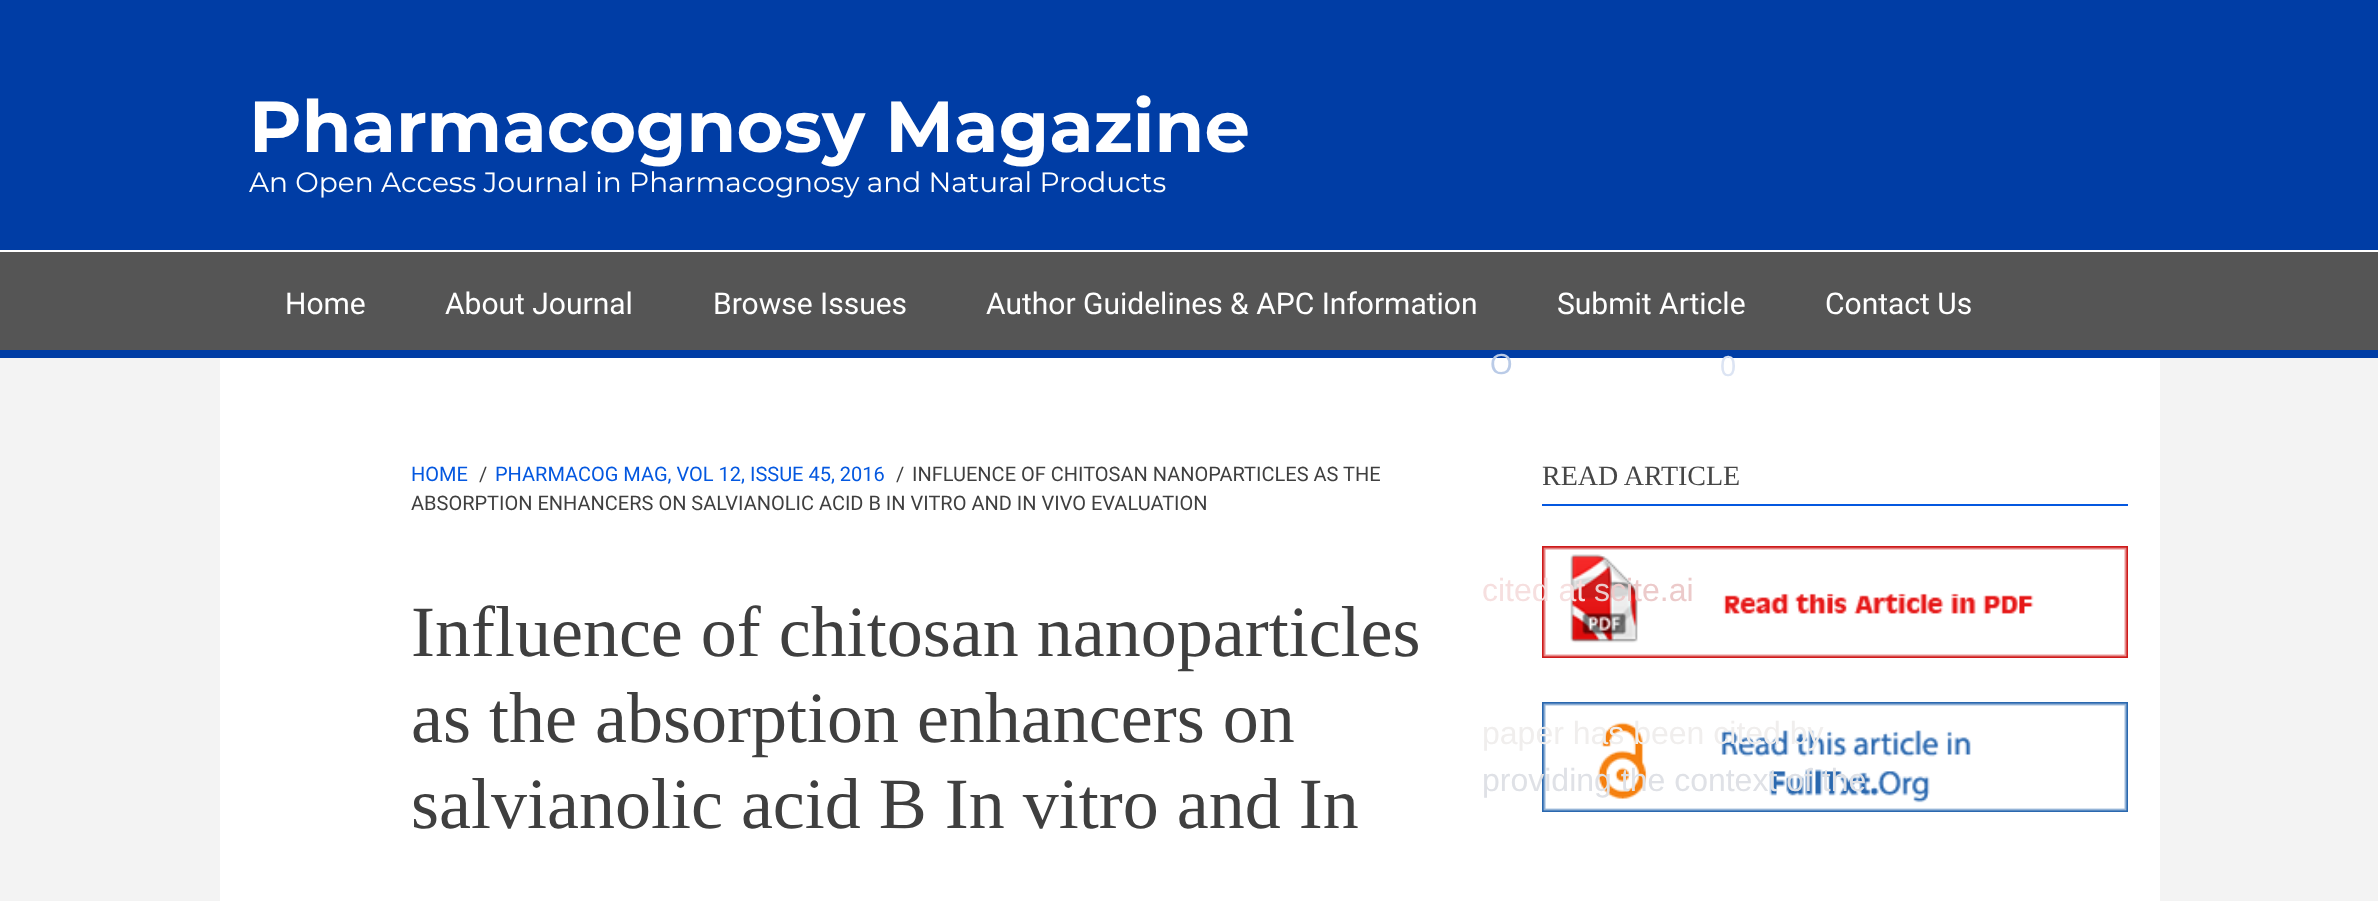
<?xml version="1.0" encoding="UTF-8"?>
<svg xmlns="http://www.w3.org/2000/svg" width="2378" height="901">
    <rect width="100%" height="100%" fill="#F3F3F3"/>
    <rect x="0" y="0" width="2378" height="250" fill="#003DA5"/>
    <rect x="0" y="250" width="2378" height="2" fill="#FFFFFF"/>
    <text x="249" y="152" font-family="Montserrat" font-size="72" font-weight="700" fill="#FFFFFF">Pharmacognosy Magazine</text>
    <text x="249" y="192" font-family="Montserrat" font-size="28" fill="#FFFFFF">An Open Access Journal in Pharmacognosy and Natural Products</text>
    <rect x="0" y="252" width="2378" height="98" fill="#555555"/>
    <rect x="0" y="350" width="2378" height="8" fill="#003DA5"/>
    <text x="285" y="314" font-family="Roboto" font-size="30" fill="#FFFFFF">Home</text>
    <text x="445" y="314" font-family="Roboto" font-size="30" fill="#FFFFFF">About Journal</text>
    <text x="713" y="314" font-family="Roboto" font-size="30" fill="#FFFFFF">Browse Issues</text>
    <text x="986" y="314" font-family="Roboto" font-size="30" fill="#FFFFFF">Author Guidelines &amp; APC Information</text>
    <text x="1557" y="314" font-family="Roboto" font-size="30" fill="#FFFFFF">Submit Article</text>
    <text x="1825" y="314" font-family="Roboto" font-size="30" fill="#FFFFFF">Contact Us</text>
    <rect x="220" y="358" width="1940" height="543" fill="#FFFFFF"/>
    <text x="411" y="481" font-family="Roboto" font-size="20" fill="#0458E0">HOME</text>
    <text x="479" y="481" font-family="Roboto" font-size="20" fill="#3F3F3F">/</text>
    <text x="495" y="481" font-family="Roboto" font-size="20" fill="#0458E0">PHARMACOG MAG, VOL 12, ISSUE 45, 2016</text>
    <text x="896" y="481" font-family="Roboto" font-size="20" fill="#3F3F3F">/</text>
    <text x="912" y="481" font-family="Roboto" font-size="20" fill="#3F3F3F">INFLUENCE OF CHITOSAN NANOPARTICLES AS THE</text>
    <text x="411" y="510" font-family="Roboto" font-size="20" fill="#3F3F3F">ABSORPTION ENHANCERS ON SALVIANOLIC ACID B IN VITRO AND IN VIVO EVALUATION</text>
    <text font-family="Liberation Serif" font-size="72" fill="#3F3F3F">
        <tspan x="411" y="656">Influence of chitosan nanoparticles</tspan>
        <tspan x="411" y="742">as the absorption enhancers on</tspan>
        <tspan x="411" y="828">salvianolic acid B In vitro and In</tspan>
    </text>
    <text x="1490" y="374" font-family="Liberation Sans" font-size="29" fill="#BACBE7">O</text>
    <text x="1720" y="376" font-family="Liberation Sans" font-size="29" fill="#DCE4F3">0</text>
    <image x="1542" y="546" width="586" height="112" href="img_01.png"/>
    <text x="1482" y="601" font-family="Liberation Sans" font-size="32" fill="#F6DFDF">cited at</text>
    <text x="1594" y="601" font-family="Liberation Sans" font-size="32" fill="#ECCACA">scite.ai</text>
    <image x="1542" y="702" width="586" height="110" href="img_02.png"/>
    <text x="1482" y="744" font-family="Liberation Sans" font-size="32" fill="#F0EEED">paper has been cited by</text>
    <text x="1482" y="791" font-family="Liberation Sans" font-size="32" fill="#DFE1E6">providing the context of the</text>
    <rect x="1542" y="504" width="586" height="2" fill="#0458E0"/>
    <text x="1542" y="485" font-family="Liberation Serif" font-size="28" fill="#464646">READ ARTICLE</text>
</svg>
